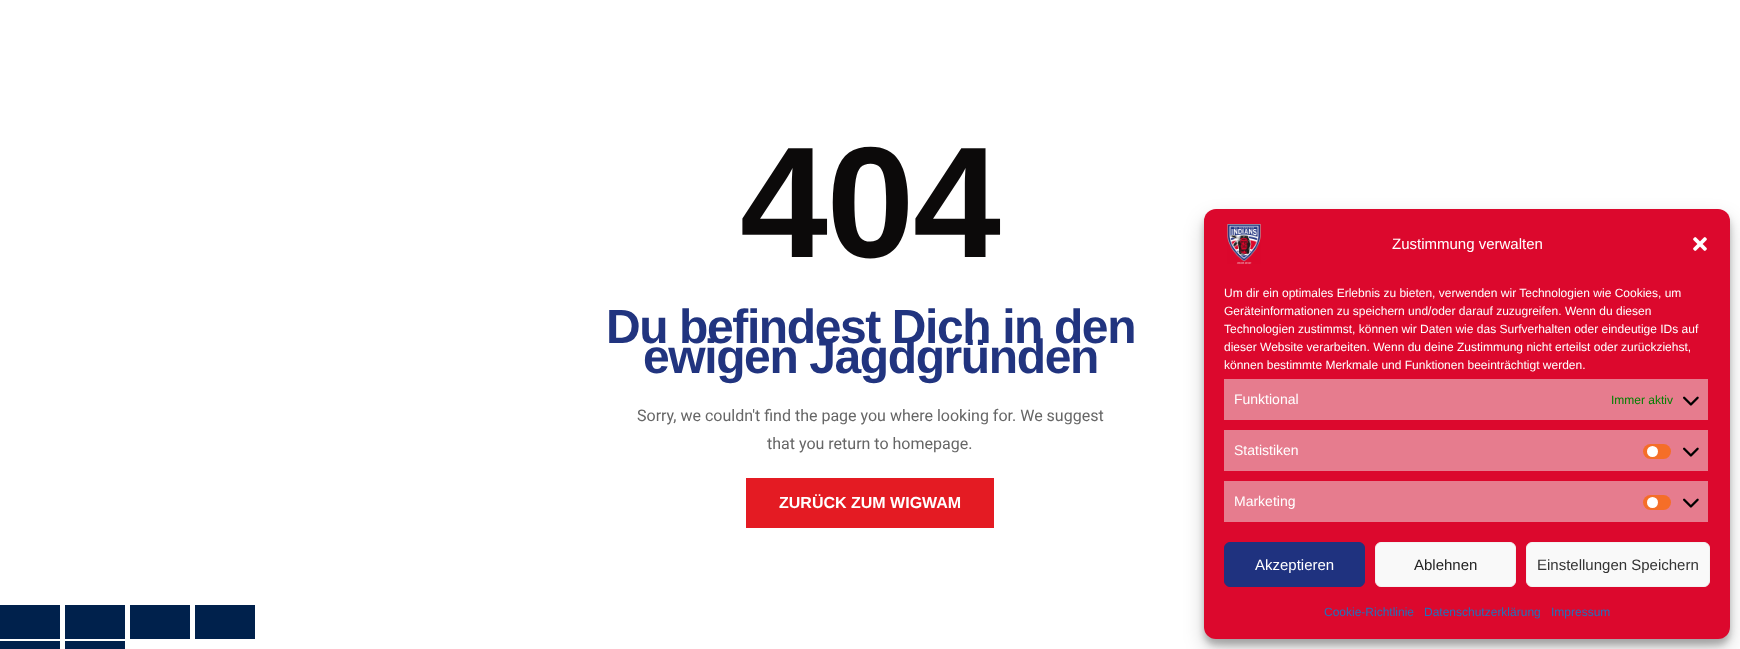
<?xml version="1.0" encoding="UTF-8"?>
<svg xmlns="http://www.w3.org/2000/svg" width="1740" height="649">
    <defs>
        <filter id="blur1" x="-50%" y="-200%" width="200%" height="500%"><feGaussianBlur stdDeviation="3"/></filter>
        <filter id="blur2" x="-50%" y="-200%" width="200%" height="500%"><feGaussianBlur stdDeviation="10"/></filter>
    </defs>
    <rect width="100%" height="100%" fill="#FFFFFF"/>
    <text x="740" y="257" font-family="Liberation Sans" font-size="158" font-weight="700" letter-spacing="-1.4" fill="#0C0A0A">404</text>
    <text x="606" y="343" font-family="Liberation Sans" font-size="48" font-weight="700" letter-spacing="-1.4" fill="#21347F">Du befindest Dich in den</text>
    <text x="643" y="373" font-family="Liberation Sans" font-size="48" font-weight="700" letter-spacing="-1.4" fill="#21347F">ewigen Jagdgründen</text>
    <text x="637" y="421" font-family="Roboto" font-size="16" fill="#666666">Sorry, we couldn't find the page you where looking for. We suggest</text>
    <text x="767" y="449" font-family="Roboto" font-size="16" fill="#666666">that you return to homepage.</text>
    <rect x="746" y="478" width="248" height="50" fill="#E41B23"/>
    <text x="779" y="508" font-family="Liberation Sans" font-size="16" font-weight="700" fill="#FFFFFF">ZURÜCK ZUM WIGWAM</text>
    <rect x="1204" y="215" width="526" height="430" rx="12" fill="#000000" fill-opacity="0.23" filter="url(#blur1)"/>
    <rect x="1204" y="219" width="526" height="430" rx="12" fill="#000000" fill-opacity="0.19" filter="url(#blur2)"/>
    <rect x="1204" y="209" width="526" height="430" rx="12" fill="#DC082D"/>
    <image x="1227" y="224" width="34" height="40" href="img_01.png"/>
    <text x="1392" y="249" font-family="Liberation Sans" font-size="15" fill="#FFFFFF">Zustimmung verwalten</text>
    <image x="1693" y="237" width="14" height="14" href="img_02.png"/>
    <text font-family="Liberation Sans" font-size="12" fill="#FFFFFF">
        <tspan x="1224" y="297">Um dir ein optimales Erlebnis zu bieten, verwenden wir Technologien wie Cookies, um</tspan>
        <tspan x="1224" y="315">Geräteinformationen zu speichern und/oder darauf zuzugreifen. Wenn du diesen</tspan>
        <tspan x="1224" y="333">Technologien zustimmst, können wir Daten wie das Surfverhalten oder eindeutige IDs auf</tspan>
        <tspan x="1224" y="351">dieser Website verarbeiten. Wenn du deine Zustimmung nicht erteilst oder zurückziehst,</tspan>
        <tspan x="1224" y="369">können bestimmte Merkmale und Funktionen beeinträchtigt werden.</tspan>
    </text>
    <rect x="1224" y="379" width="484" height="41" fill="#E67C8E"/>
    <text x="1234" y="404" font-family="Liberation Sans" font-size="14" fill="#FFFFFF">Funktional</text>
    <text x="1611" y="404" font-family="Liberation Sans" font-size="12" fill="#008000">Immer aktiv</text>
    <image x="1683" y="396" width="16" height="10" href="img_03.png"/>
    <rect x="1224" y="430" width="484" height="41" fill="#E67C8E"/>
    <text x="1234" y="455" font-family="Liberation Sans" font-size="14" fill="#FFFFFF">Statistiken</text>
    <rect x="1643" y="444" width="28" height="15" rx="7.5" fill="#F56E28"/>
    <circle cx="1652.5" cy="451.5" r="5.5" fill="#FFFFFF"/>
    <image x="1683" y="447" width="16" height="10" href="img_03.png"/>
    <rect x="1224" y="481" width="484" height="41" fill="#E67C8E"/>
    <text x="1234" y="506" font-family="Liberation Sans" font-size="14" fill="#FFFFFF">Marketing</text>
    <rect x="1643" y="495" width="28" height="15" rx="7.5" fill="#F56E28"/>
    <circle cx="1652.5" cy="502.5" r="5.5" fill="#FFFFFF"/>
    <image x="1683" y="498" width="16" height="10" href="img_03.png"/>
    <rect x="1224.5" y="542.5" width="140" height="44" rx="5.5" fill="#1F327F" stroke="#1F327F"/>
    <text x="1255" y="570" font-family="Liberation Sans" font-size="15" fill="#FFFFFF">Akzeptieren</text>
    <rect x="1375.5" y="542.5" width="140" height="44" rx="5.5" fill="#F9F9F9" stroke="#F2F2F2"/>
    <text x="1414" y="570" font-family="Liberation Sans" font-size="15" fill="#222222">Ablehnen</text>
    <rect x="1526.5" y="542.5" width="183" height="44" rx="5.5" fill="#F9F9F9" stroke="#F2F2F2"/>
    <text x="1537" y="570" font-family="Liberation Sans" font-size="15" fill="#333333">Einstellungen Speichern</text>
    <text x="1324" y="616" font-family="Liberation Sans" font-size="12" fill="#1E73BE">Cookie-Richtlinie</text>
    <text x="1424" y="616" font-family="Liberation Sans" font-size="12" fill="#1E73BE">Datenschutzerklärung</text>
    <text x="1551" y="616" font-family="Liberation Sans" font-size="12" fill="#1E73BE">Impressum</text>
    <rect x="0" y="605" width="60" height="34" fill="#00214C"/>
    <rect x="65" y="605" width="60" height="34" fill="#00214C"/>
    <rect x="130" y="605" width="60" height="34" fill="#00214C"/>
    <rect x="195" y="605" width="60" height="34" fill="#00214C"/>
    <rect x="0" y="641" width="60" height="8" fill="#00214C"/>
    <rect x="65" y="641" width="60" height="8" fill="#00214C"/>
</svg>
